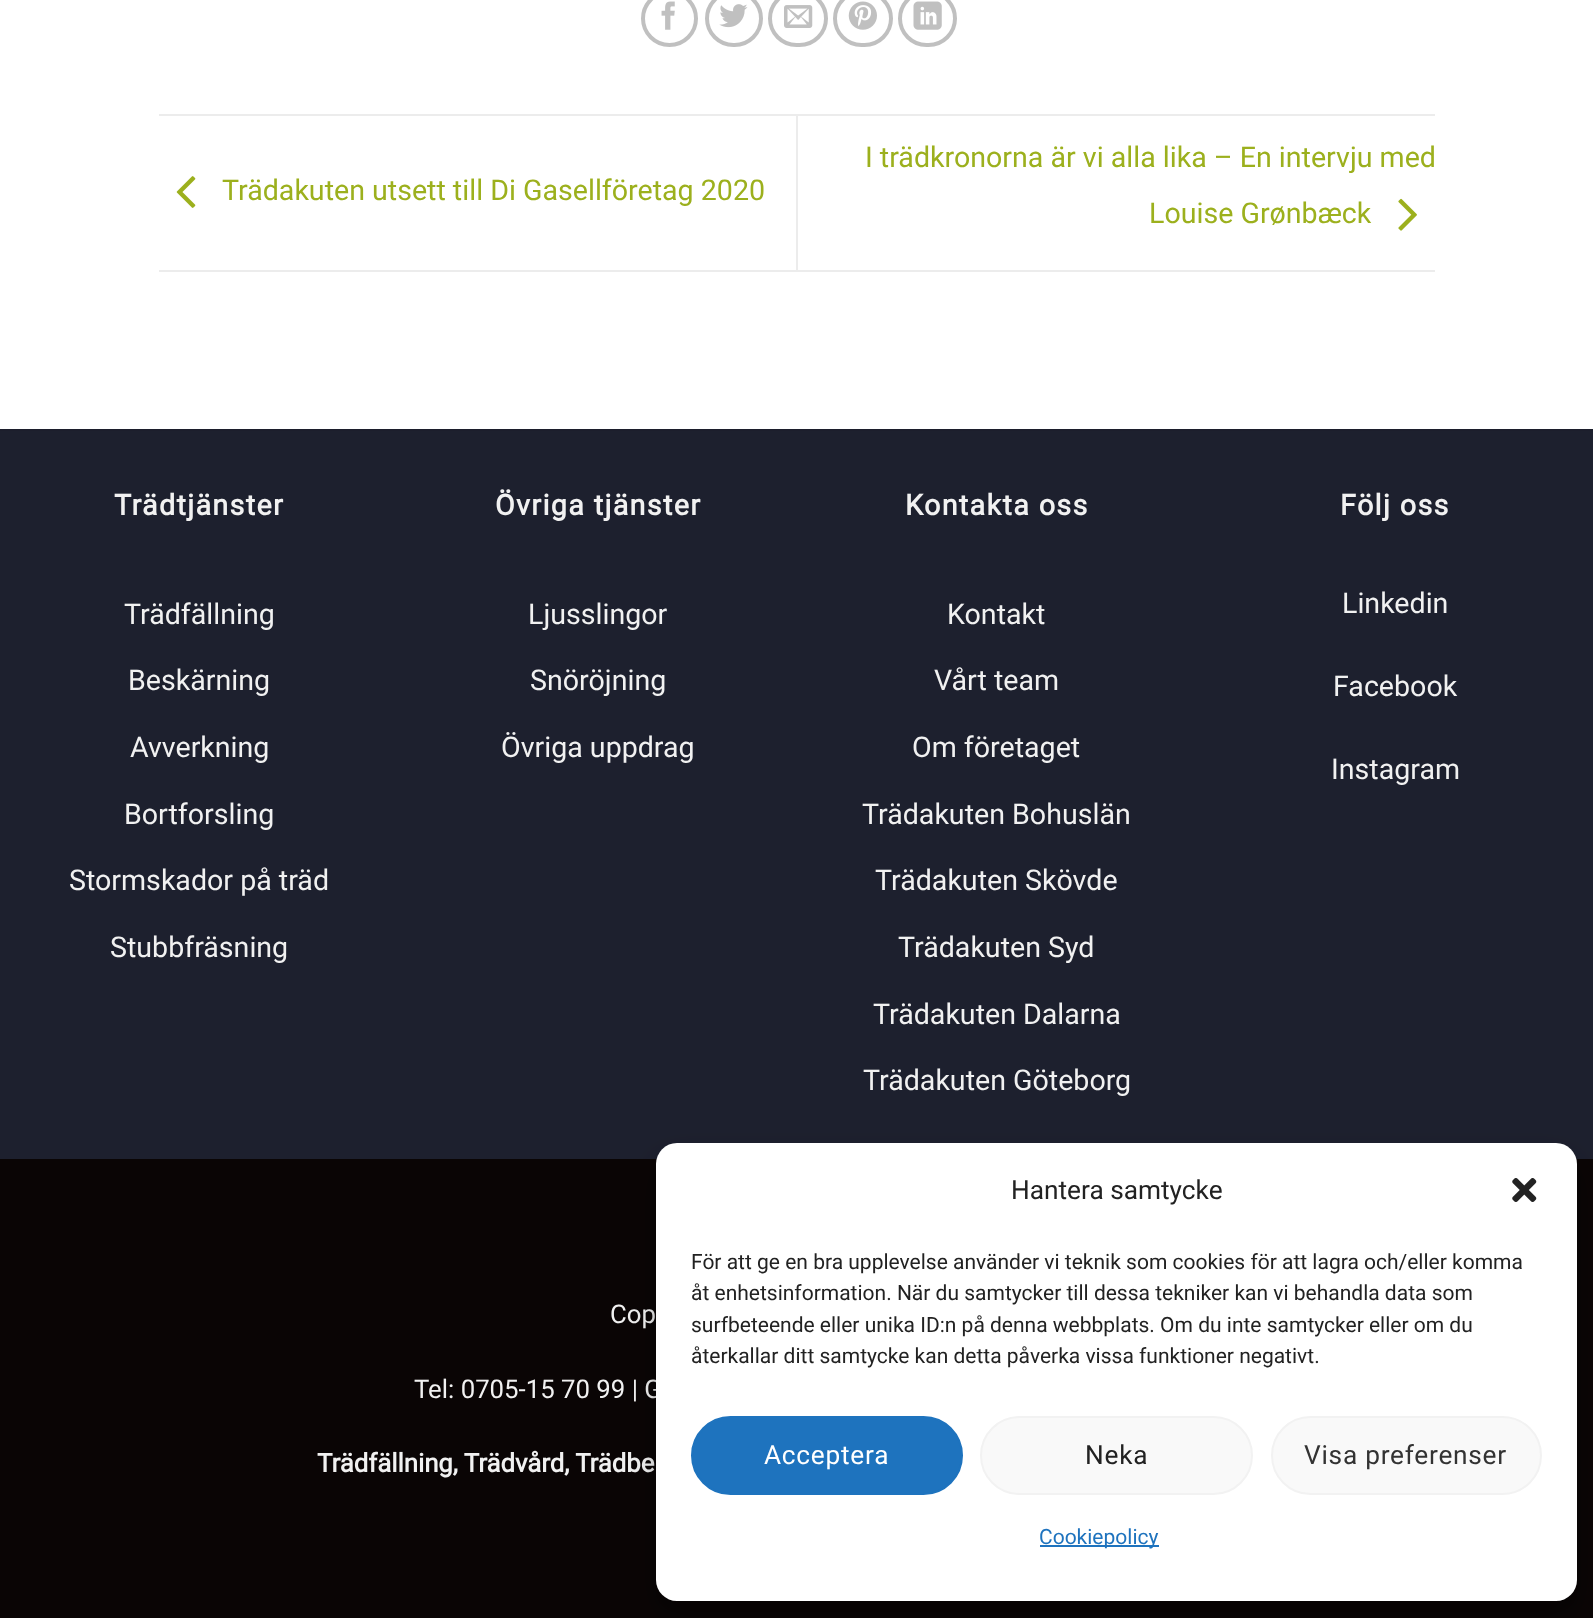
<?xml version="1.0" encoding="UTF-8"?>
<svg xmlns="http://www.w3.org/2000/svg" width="1593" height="1618">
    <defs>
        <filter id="blur1" x="-50%" y="-200%" width="200%" height="500%"><feGaussianBlur stdDeviation="5"/></filter>
        <filter id="blur2" x="-50%" y="-200%" width="200%" height="500%"><feGaussianBlur stdDeviation="17.5"/></filter>
    </defs>
    <rect width="100%" height="100%" fill="#FFFFFF"/>
    <circle cx="669.5" cy="18.5" r="26.5" fill="none" stroke="#C0C0C0" stroke-width="4"/>
    <image x="661" y="1" width="14" height="29" href="img_01.png"/>
    <rect x="707" y="-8" width="54" height="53" rx="26.5" fill="none" stroke="#C0C0C0" stroke-width="4"/>
    <image x="719" y="4" width="29" height="24" href="img_02.png"/>
    <rect x="770" y="-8" width="56" height="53" rx="26.5" fill="none" stroke="#C0C0C0" stroke-width="4"/>
    <image x="784" y="5" width="29" height="23" href="img_03.png"/>
    <rect x="835" y="-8" width="56" height="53" rx="26.5" fill="none" stroke="#C0C0C0" stroke-width="4"/>
    <image x="848" y="1" width="29" height="29" href="img_04.png"/>
    <rect x="900" y="-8" width="55" height="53" rx="26.5" fill="none" stroke="#C0C0C0" stroke-width="4"/>
    <image x="913" y="1" width="29" height="29" href="img_05.png"/>
    <rect x="159" y="114" width="1276" height="2" fill="#ECECEC"/>
    <rect x="159" y="270" width="1276" height="2" fill="#ECECEC"/>
    <image x="176" y="176" width="20" height="32" href="img_06.png"/>
    <text x="222" y="200" font-family="Roboto" font-size="28.6" fill="#9CB01D">Trädakuten utsett till Di Gasellföretag 2020</text>
    <rect x="796" y="116" width="2" height="154" fill="#ECECEC"/>
    <text x="865" y="167" font-family="Roboto" font-size="28.6" fill="#9CB01D">I trädkronorna är vi alla lika – En intervju med</text>
    <text x="1149" y="223" font-family="Roboto" font-size="28.6" fill="#9CB01D">Louise Grønbæck</text>
    <image x="1398" y="198" width="19" height="33" href="img_07.png"/>
    <rect x="0" y="431" width="1593" height="728" fill="#1D202E"/>
    <rect x="0" y="429" width="1593" height="2" fill="#1C1E2C"/>
    <text x="114" y="515" font-family="Roboto" font-size="28.6" font-weight="700" letter-spacing="1.4" fill="#F1F1F1">Trädtjänster</text>
    <text x="124" y="624" font-family="Roboto" font-size="28.6" fill="#F1F1F1">Trädfällning</text>
    <text x="128" y="690" font-family="Roboto" font-size="28.6" fill="#F1F1F1">Beskärning</text>
    <text x="130" y="757" font-family="Roboto" font-size="28.6" fill="#F1F1F1">Avverkning</text>
    <text x="124" y="824" font-family="Roboto" font-size="28.6" fill="#F1F1F1">Bortforsling</text>
    <text x="69" y="890" font-family="Roboto" font-size="28.6" fill="#F1F1F1">Stormskador på träd</text>
    <text x="110" y="957" font-family="Roboto" font-size="28.6" fill="#F1F1F1">Stubbfräsning</text>
    <text x="495" y="515" font-family="Roboto" font-size="28.6" font-weight="700" letter-spacing="1.4" fill="#F1F1F1">Övriga tjänster</text>
    <text x="528" y="624" font-family="Roboto" font-size="28.6" fill="#F1F1F1">Ljusslingor</text>
    <text x="530" y="690" font-family="Roboto" font-size="28.6" fill="#F1F1F1">Snöröjning</text>
    <text x="501" y="757" font-family="Roboto" font-size="28.6" fill="#F1F1F1">Övriga uppdrag</text>
    <text x="905" y="515" font-family="Roboto" font-size="28.6" font-weight="700" letter-spacing="1.4" fill="#F1F1F1">Kontakta oss</text>
    <text x="947" y="624" font-family="Roboto" font-size="28.6" fill="#F1F1F1">Kontakt</text>
    <text x="934" y="690" font-family="Roboto" font-size="28.6" fill="#F1F1F1">Vårt team</text>
    <text x="912" y="757" font-family="Roboto" font-size="28.6" fill="#F1F1F1">Om företaget</text>
    <text x="862" y="824" font-family="Roboto" font-size="28.6" fill="#F1F1F1">Trädakuten Bohuslän</text>
    <text x="875" y="890" font-family="Roboto" font-size="28.6" fill="#F1F1F1">Trädakuten Skövde</text>
    <text x="898" y="957" font-family="Roboto" font-size="28.6" fill="#F1F1F1">Trädakuten Syd</text>
    <text x="873" y="1024" font-family="Roboto" font-size="28.6" fill="#F1F1F1">Trädakuten Dalarna</text>
    <text x="863" y="1090" font-family="Roboto" font-size="28.6" fill="#F1F1F1">Trädakuten Göteborg</text>
    <text x="1340" y="515" font-family="Roboto" font-size="28.6" font-weight="700" letter-spacing="1.4" fill="#F1F1F1">Följ oss</text>
    <text x="1342" y="613" font-family="Roboto" font-size="28.6" fill="#F1F1F1">Linkedin</text>
    <text x="1333" y="696" font-family="Roboto" font-size="28.6" fill="#F1F1F1">Facebook</text>
    <text x="1331" y="779" font-family="Roboto" font-size="28.6" fill="#F1F1F1">Instagram</text>
    <rect x="0" y="1159" width="1593" height="459" fill="#0A0505"/>
    <text x="610" y="1323" font-family="Roboto" font-size="25.75" fill="#F1F1F1">Cop</text>
    <text x="414" y="1398" font-family="Roboto" font-size="25.75" fill="#F1F1F1">Tel: 0705-15 70 99 | G</text>
    <text x="317" y="1472" font-family="Roboto" font-size="25.75" font-weight="700" fill="#F1F1F1">Trädfällning, Trädvård, Trädbe</text>
    <rect x="656" y="1153" width="921" height="459" rx="21" fill="#000000" fill-opacity="0.23" filter="url(#blur1)"/>
    <rect x="656" y="1160" width="921" height="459" rx="21" fill="#000000" fill-opacity="0.19" filter="url(#blur2)"/>
    <rect x="656" y="1143" width="921" height="458" rx="21" fill="#FFFFFF"/>
    <text x="1011" y="1199" font-family="Roboto" font-size="26.25" fill="#222222">Hantera samtycke</text>
    <image x="1512" y="1178" width="25" height="24" href="img_08.png"/>
    <text font-family="Roboto" font-size="21" fill="#222222">
        <tspan x="691" y="1269">För att ge en bra upplevelse använder vi teknik som cookies för att lagra och/eller komma</tspan>
        <tspan x="691" y="1300">åt enhetsinformation. När du samtycker till dessa tekniker kan vi behandla data som</tspan>
        <tspan x="691" y="1332">surfbeteende eller unika ID:n på denna webbplats. Om du inte samtycker eller om du</tspan>
        <tspan x="691" y="1363">återkallar ditt samtycke kan detta påverka vissa funktioner negativt.</tspan>
    </text>
    <rect x="692" y="1417" width="270" height="77" rx="38.5" fill="#1E73BE" stroke="#1E73BE" stroke-width="2"/>
    <text x="764" y="1464" font-family="Roboto" font-size="26.25" letter-spacing="0.75" fill="#FFFFFF">Acceptera</text>
    <rect x="981" y="1417" width="271" height="77" rx="38.5" fill="#F9F9F9" stroke="#F2F2F2" stroke-width="2"/>
    <text x="1085" y="1464" font-family="Roboto" font-size="26.25" letter-spacing="0.75" fill="#222222">Neka</text>
    <rect x="1272" y="1417" width="269" height="77" rx="38.5" fill="#F9F9F9" stroke="#F2F2F2" stroke-width="2"/>
    <text x="1304" y="1464" font-family="Roboto" font-size="26.25" letter-spacing="0.75" fill="#333333">Visa preferenser</text>
    <rect x="1040" y="1545" width="119" height="2" fill="#1E73BE"/>
    <text x="1039" y="1544" font-family="Roboto" font-size="21" fill="#1E73BE">Cookiepolicy</text>
</svg>
